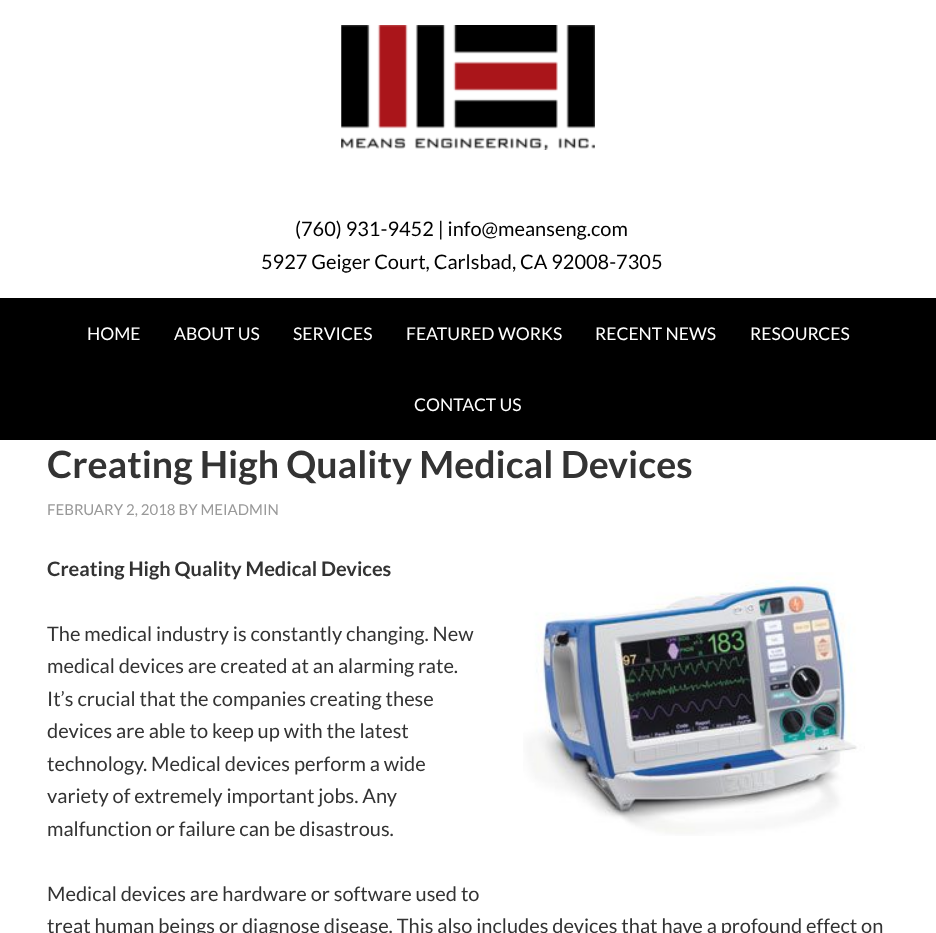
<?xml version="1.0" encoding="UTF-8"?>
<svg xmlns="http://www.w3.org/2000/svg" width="936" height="933">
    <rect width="100%" height="100%" fill="#FFFFFF"/>
    <image x="341" y="25" width="254" height="125" href="img_01.png"/>
    <text x="295" y="236" font-family="Lato" font-size="20" fill="#000000">(760) 931-9452 | info@meanseng.com</text>
    <text x="261" y="269" font-family="Lato" font-size="20" fill="#000000">5927 Geiger Court, Carlsbad, CA 92008-7305</text>
    <rect x="0" y="298" width="936" height="142" fill="#000000"/>
    <text x="87" y="340" font-family="Lato" font-size="17.5" fill="#FFFFFF">HOME</text>
    <text x="174" y="340" font-family="Lato" font-size="17.5" fill="#FFFFFF">ABOUT US</text>
    <text x="293" y="340" font-family="Lato" font-size="17.5" fill="#FFFFFF">SERVICES</text>
    <text x="406" y="340" font-family="Lato" font-size="17.5" fill="#FFFFFF">FEATURED WORKS</text>
    <text x="595" y="340" font-family="Lato" font-size="17.5" fill="#FFFFFF">RECENT NEWS</text>
    <text x="750" y="340" font-family="Lato" font-size="17.5" fill="#FFFFFF">RESOURCES</text>
    <text x="414" y="411" font-family="Lato" font-size="17.5" fill="#FFFFFF">CONTACT US</text>
    <text x="47" y="478" font-family="Lato" font-size="37.5" font-weight="700" fill="#333333">Creating High Quality Medical Devices</text>
    <text x="47" y="515" font-family="Lato" font-size="15" fill="#999999">FEBRUARY 2, 2018 BY MEIADMIN</text>
    <text x="47" y="576" font-family="Lato" font-size="20" font-weight="700" fill="#333333">Creating High Quality Medical Devices</text>
    <image x="523" y="572" width="342" height="264" href="img_02.png"/>
    <text font-family="Lato" font-size="20" fill="#333333">
        <tspan x="47" y="641">The medical industry is constantly changing. New</tspan>
        <tspan x="47" y="673">medical devices are created at an alarming rate.</tspan>
        <tspan x="47" y="706">It’s crucial that the companies creating these</tspan>
        <tspan x="47" y="738">devices are able to keep up with the latest</tspan>
        <tspan x="47" y="771">technology. Medical devices perform a wide</tspan>
        <tspan x="47" y="803">variety of extremely important jobs. Any</tspan>
        <tspan x="47" y="836">malfunction or failure can be disastrous.</tspan>
    </text>
    <text font-family="Lato" font-size="20" fill="#333333">
        <tspan x="47" y="901">Medical devices are hardware or software used to</tspan>
        <tspan x="47" y="933">treat human beings or diagnose disease. This also includes devices that have a profound effect on</tspan>
    </text>
</svg>
